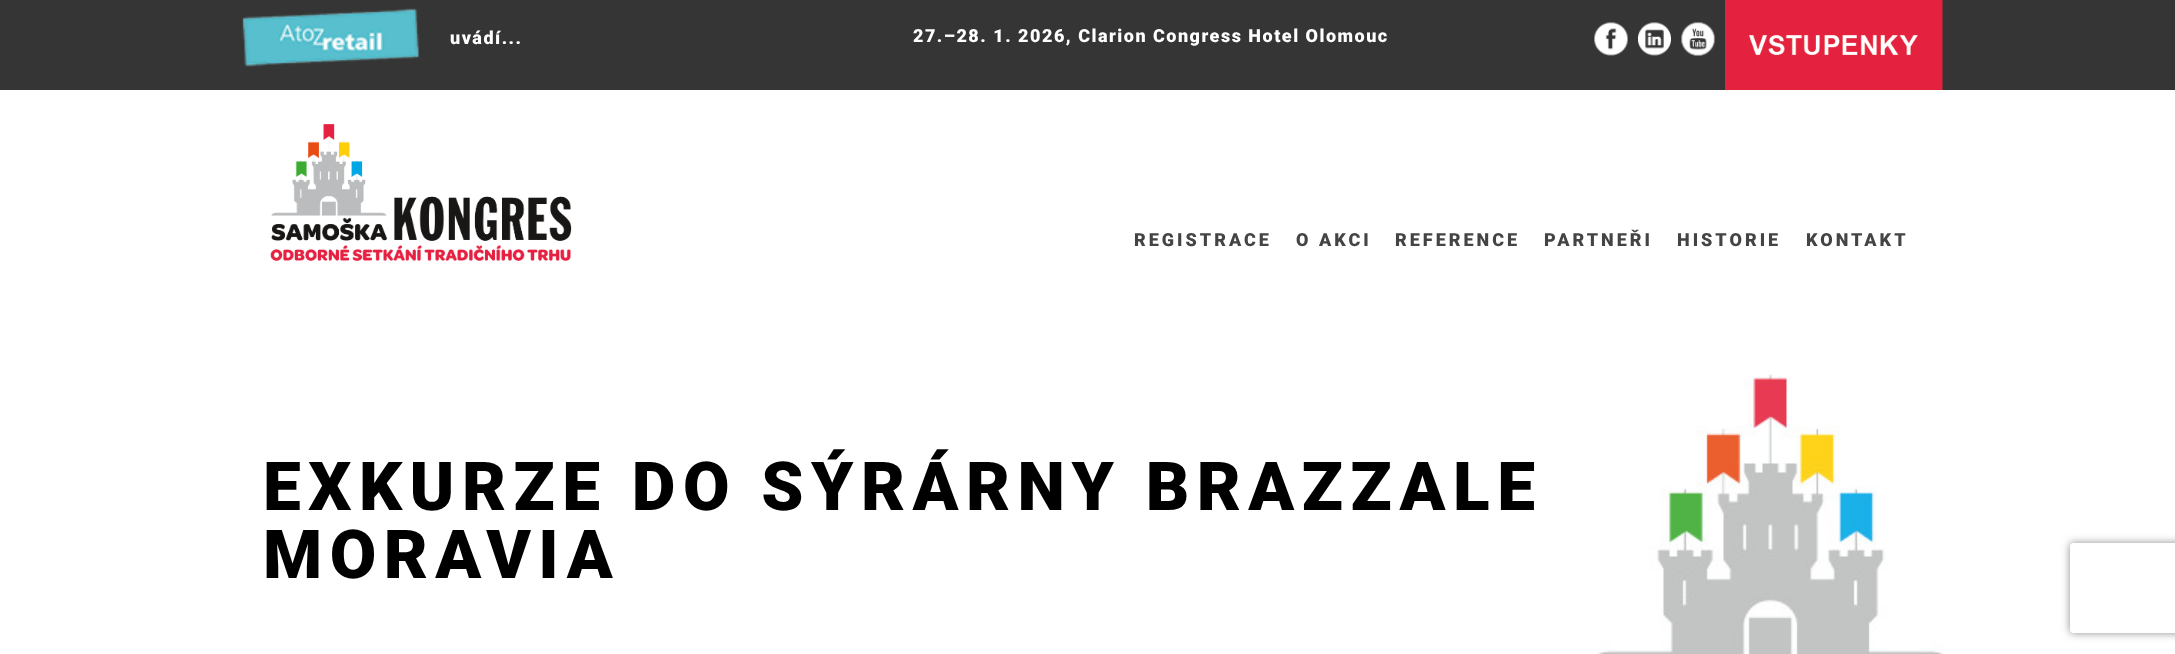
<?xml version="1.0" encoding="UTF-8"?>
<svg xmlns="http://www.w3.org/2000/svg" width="2175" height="654">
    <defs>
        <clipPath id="clip1"><path d="M 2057 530 H 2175 V 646 H 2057 Z M 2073 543 H 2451 C 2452.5 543 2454 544.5 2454 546 V 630 C 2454 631.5 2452.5 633 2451 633 H 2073 C 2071.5 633 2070 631.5 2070 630 V 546 C 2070 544.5 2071.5 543 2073 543 Z" clip-rule="evenodd"/></clipPath>
        <filter id="blur1" x="-50%" y="-200%" width="200%" height="500%"><feGaussianBlur stdDeviation="4"/></filter>
    </defs>
    <rect width="100%" height="100%" fill="#FFFFFF"/>
    <rect x="0" y="0" width="2175" height="90" fill="#353535"/>
    <image x="242" y="8" width="177" height="59" href="img_01.png"/>
    <text x="450" y="44" font-family="Roboto" font-size="18" font-weight="900" letter-spacing="1.5" fill="#FFFFFF">uvádí...</text>
    <text x="913" y="42" font-family="Roboto" font-size="18" font-weight="900" letter-spacing="1.5" fill="#FFFFFF">27.–28. 1. 2026, Clarion Congress Hotel Olomouc</text>
    <image x="1594" y="22" width="34" height="34" href="img_02.png"/>
    <image x="1638" y="22" width="33" height="34" href="img_03.png"/>
    <image x="1681" y="22" width="34" height="34" href="img_04.png"/>
    <image x="1725" y="0" width="218" height="90" href="img_05.png"/>
    <image x="270" y="123" width="302" height="138" href="img_06.png"/>
    <text x="1134" y="246" font-family="Roboto" font-size="18" font-weight="900" letter-spacing="3" fill="#444444">REGISTRACE</text>
    <text x="1296" y="246" font-family="Roboto" font-size="18" font-weight="900" letter-spacing="3" fill="#444444">O AKCI</text>
    <text x="1395" y="246" font-family="Roboto" font-size="18" font-weight="900" letter-spacing="3" fill="#444444">REFERENCE</text>
    <text x="1544" y="246" font-family="Roboto" font-size="18" font-weight="900" letter-spacing="3" fill="#444444">PARTNEŘI</text>
    <text x="1677" y="246" font-family="Roboto" font-size="18" font-weight="900" letter-spacing="3" fill="#444444">HISTORIE</text>
    <text x="1806" y="246" font-family="Roboto" font-size="18" font-weight="900" letter-spacing="3" fill="#444444">KONTAKT</text>
    <image x="1597" y="373" width="347" height="281" href="img_07.png"/>
    <text font-family="Roboto" font-size="67.5" font-weight="900" letter-spacing="7.5" fill="#000000">
        <tspan x="263" y="510">EXKURZE DO SÝRÁRNY BRAZZALE</tspan>
        <tspan x="263" y="578">MORAVIA</tspan>
    </text>
    <g clip-path="url(#clip1)">
        <rect x="2070" y="543" width="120" height="90" rx="3" fill="#8D8D8D" filter="url(#blur1)"/>
    </g>
</svg>
